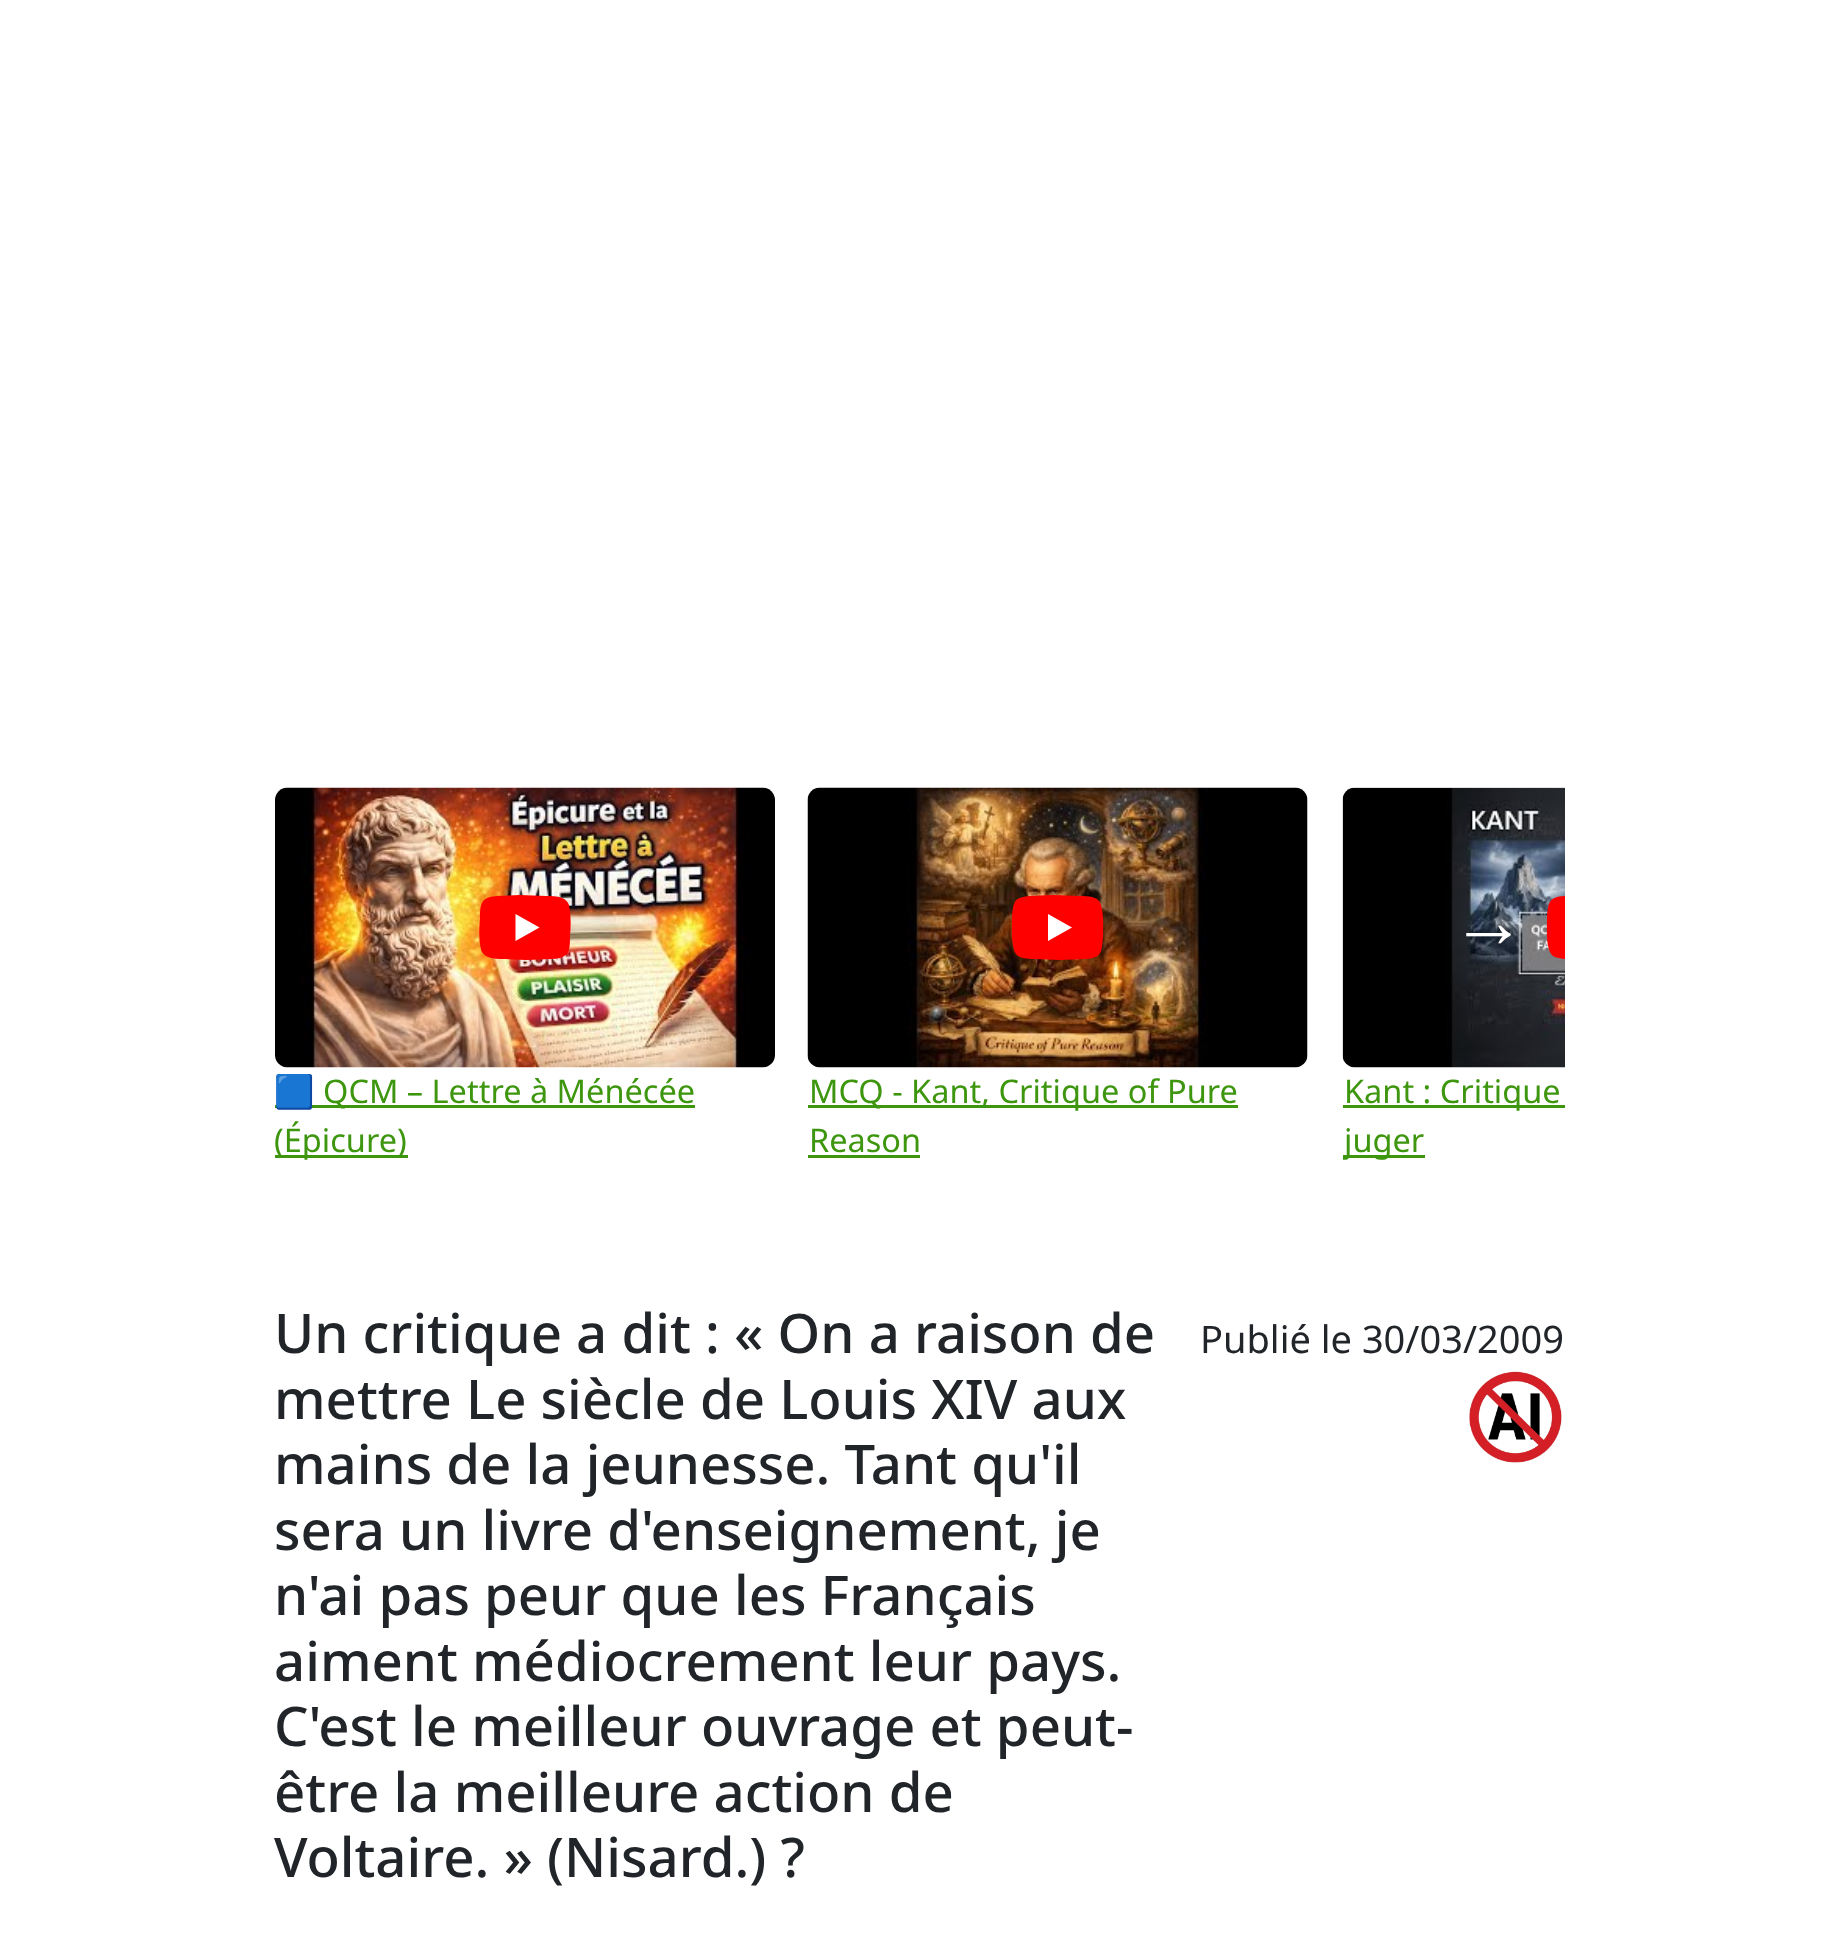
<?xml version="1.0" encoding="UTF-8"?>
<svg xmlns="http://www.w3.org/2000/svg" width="1837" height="1944">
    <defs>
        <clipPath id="clip1"><rect x="275" y="788" width="500" height="377"/></clipPath>
        <clipPath id="clip2"><rect x="1530" y="865" width="35" height="125"/></clipPath>
        <clipPath id="clip3"><rect x="1343" y="788" width="222" height="377"/></clipPath>
    </defs>
    <rect width="100%" height="100%" fill="#FFFFFF"/>
    <image x="1342" y="787" width="223" height="281" href="img_03.png"/>
    <text x="1451" y="947" font-family="Liberation Sans" font-size="75" font-weight="700" fill="#FFFFFF">→</text>
    <image x="275" y="787" width="500" height="281" href="img_01.png"/>
    <path d="M 569 905 C 568 902 565 899 562 898 C 557 896 551 896 546 896 L 520 895 L 498 896 C 481 897 480 903 480 919 C 479 929 479 940 481 950 C 482 953 485 956 488 957 C 493 959 499 959 504 959 L 526 960 L 552 959 C 569 958 570 952 570 936 C 571 926 571 915 569 905 Z" fill="#FF0000"/>
    <path d="M 515.5 941 L 539.5 927.5 L 515.5 914 Z" fill="#FFFFFF"/>
    <rect x="275" y="1105" width="420" height="3" fill="#3D960E"/>
    <g clip-path="url(#clip1)">
        <text x="274" y="1103" font-family="Noto Color Emoji" font-size="32.5" fill="#3D960E">🟦</text>
    </g>
    <text x="323" y="1103" font-family="Noto Sans" font-size="32.5" fill="#3D960E">QCM – Lettre à Ménécée</text>
    <rect x="275" y="1155" width="133" height="3" fill="#3D960E"/>
    <text x="274" y="1152" font-family="Noto Sans" font-size="32.5" fill="#3D960E">(Épicure)</text>
    <image x="807" y="787" width="501" height="281" href="img_02.png"/>
    <path d="M 1101 905 C 1100 902 1098 899 1095 898 C 1090 896 1084 896 1079 896 L 1053 895 L 1030 896 C 1013 897 1013 903 1012 919 C 1012 929 1011 940 1014 950 C 1015 953 1017 956 1020 957 C 1025 959 1031 959 1036 959 L 1059 960 L 1085 959 C 1102 958 1102 952 1103 936 C 1103 926 1104 915 1101 905 Z" fill="#FF0000"/>
    <path d="M 1048 941 L 1072 927.5 L 1048 914 Z" fill="#FFFFFF"/>
    <rect x="808" y="1105" width="430" height="3" fill="#3D960E"/>
    <text font-family="Noto Sans" font-size="32.5" fill="#3D960E">
        <tspan x="809" y="1103">MCQ - Kant, Critique of Pure</tspan>
        <tspan x="809" y="1152">Reason</tspan>
    </text>
    <rect x="808" y="1155" width="112" height="3" fill="#3D960E"/>
    <g clip-path="url(#clip2)">
        <path d="M 1636 905 C 1635 902 1633 899 1630 898 C 1625 896 1619 896 1614 896 L 1588 895 L 1565 896 C 1548 897 1548 903 1547 919 C 1547 929 1546 940 1549 950 C 1550 953 1552 956 1555 957 C 1560 959 1566 959 1571 959 L 1594 960 L 1620 959 C 1637 958 1637 952 1638 936 C 1638 926 1639 915 1636 905 Z" fill="#FF0000"/>
    </g>
    <rect x="1343" y="1105" width="222" height="3" fill="#3D960E"/>
    <text x="1344" y="1103" font-family="Noto Sans" font-size="32.5" fill="#3D960E">Kant : Critique</text>
    <rect x="1343" y="1155" width="82" height="3" fill="#3D960E"/>
    <g clip-path="url(#clip3)">
        <text x="1344" y="1152" font-family="Noto Sans" font-size="32.5" fill="#3D960E">juger</text>
    </g>
    <text font-family="Noto Sans" font-size="54.5" font-weight="500" fill="#212529">
        <tspan x="274" y="1353">Un critique a dit : « On a raison de</tspan>
        <tspan x="274" y="1419">mettre Le siècle de Louis XIV aux</tspan>
        <tspan x="274" y="1484">mains de la jeunesse. Tant qu'il</tspan>
        <tspan x="274" y="1550">sera un livre d'enseignement, je</tspan>
        <tspan x="274" y="1615">n'ai pas peur que les Français</tspan>
        <tspan x="274" y="1681">aiment médiocrement leur pays.</tspan>
        <tspan x="274" y="1746">C'est le meilleur ouvrage et peut-</tspan>
        <tspan x="274" y="1812">être la meilleure action de</tspan>
        <tspan x="274" y="1877">Voltaire. » (Nisard.) ?</tspan>
    </text>
    <text x="1200" y="1353" font-family="Noto Sans" font-size="38" fill="#212529">Publié le 30/03/2009</text>
    <image x="1469" y="1371" width="94" height="92" href="img_04.png"/>
</svg>
